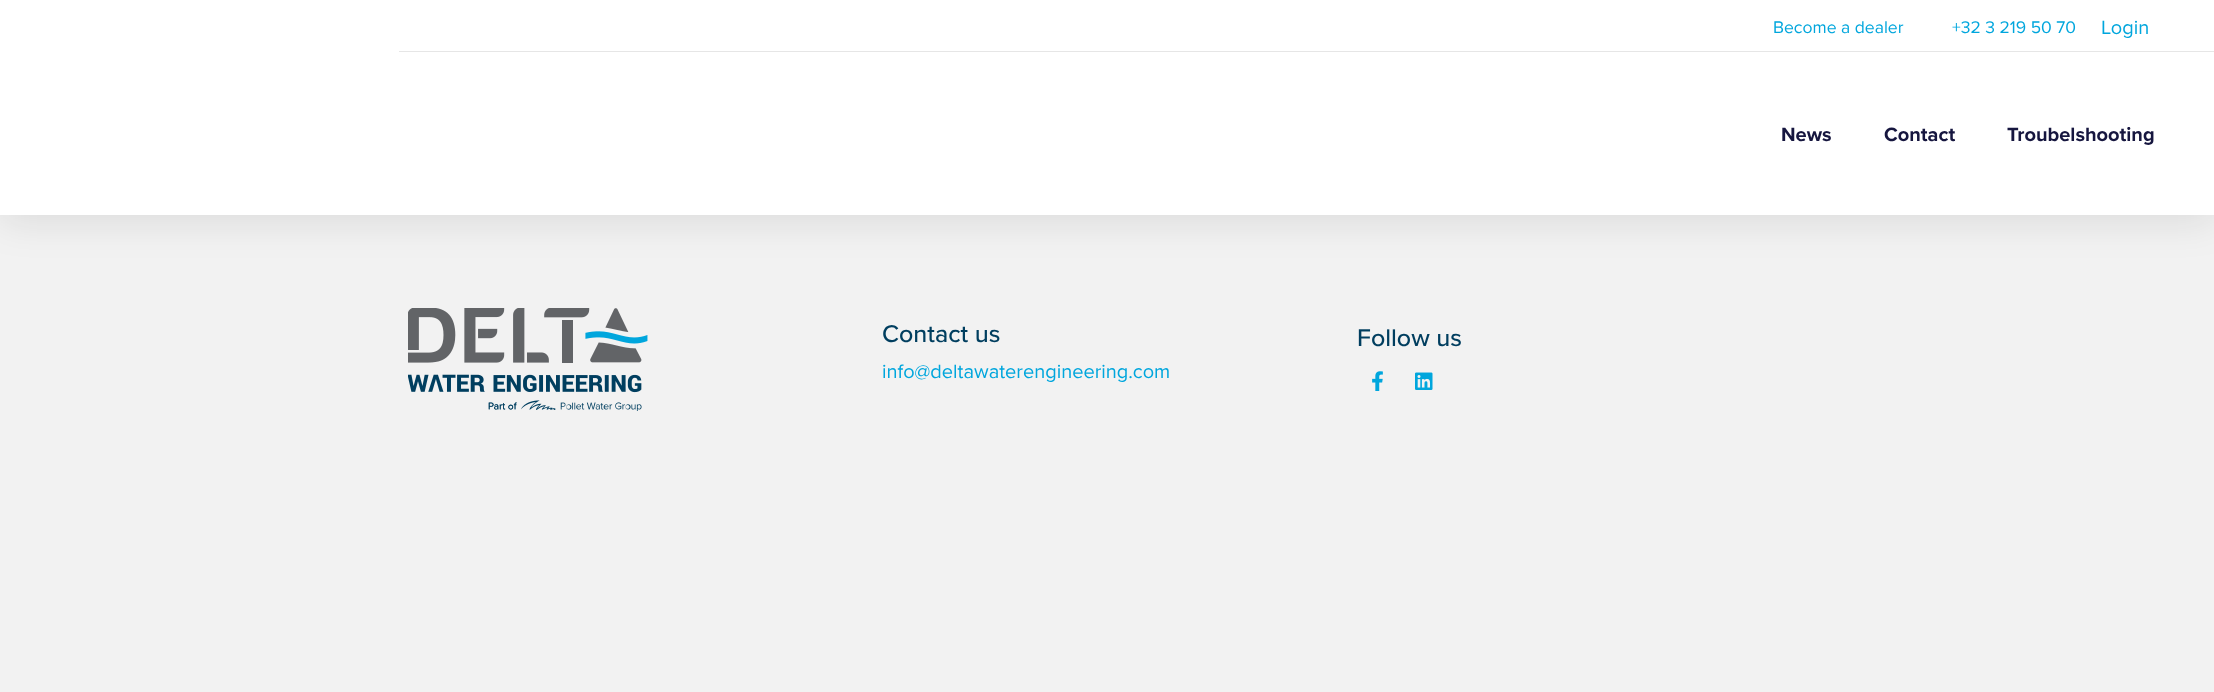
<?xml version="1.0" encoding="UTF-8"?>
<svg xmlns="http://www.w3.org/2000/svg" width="2214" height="692">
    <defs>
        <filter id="blur1" x="-50%" y="-200%" width="200%" height="500%"><feGaussianBlur stdDeviation="19"/></filter>
    </defs>
    <rect width="100%" height="100%" fill="#F2F2F2"/>
    <rect x="0" y="6" width="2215" height="215" fill="#000000" fill-opacity="0.1" filter="url(#blur1)"/>
    <rect x="0" y="0" width="2214" height="215" fill="#FFFFFF"/>
    <text x="1773" y="33" font-family="Proxima Nova" font-size="17.5" fill="#00A6DD">Become a dealer</text>
    <text x="1952" y="33" font-family="Proxima Nova" font-size="17.5" fill="#00A6DD">+32 3 219 50 70</text>
    <text x="2101" y="34" font-family="Proxima Nova" font-size="20" fill="#00A6DD">Login</text>
    <rect x="399" y="51" width="1815" height="1" fill="#E6E6E6"/>
    <text x="1781" y="141" font-family="Proxima Nova" font-size="20" font-weight="700" fill="#16163F">News</text>
    <text x="1884" y="141" font-family="Proxima Nova" font-size="20" font-weight="700" fill="#16163F">Contact</text>
    <text x="2007" y="141" font-family="Proxima Nova" font-size="20" font-weight="700" fill="#16163F">Troubelshooting</text>
    <image x="408" y="308" width="240" height="103" href="img_01.png"/>
    <text x="882" y="342" font-family="Proxima Nova" font-size="25" font-weight="500" fill="#003E5F">Contact us</text>
    <text x="882" y="378" font-family="Proxima Nova" font-size="20" fill="#00A6DD">info@deltawaterengineering.com</text>
    <text x="1357" y="346" font-family="Proxima Nova" font-size="25" font-weight="500" fill="#003E5F">Follow us</text>
    <image x="1372" y="371" width="11" height="20" href="img_02.png"/>
    <image x="1415" y="372" width="18" height="18" href="img_03.png"/>
</svg>
